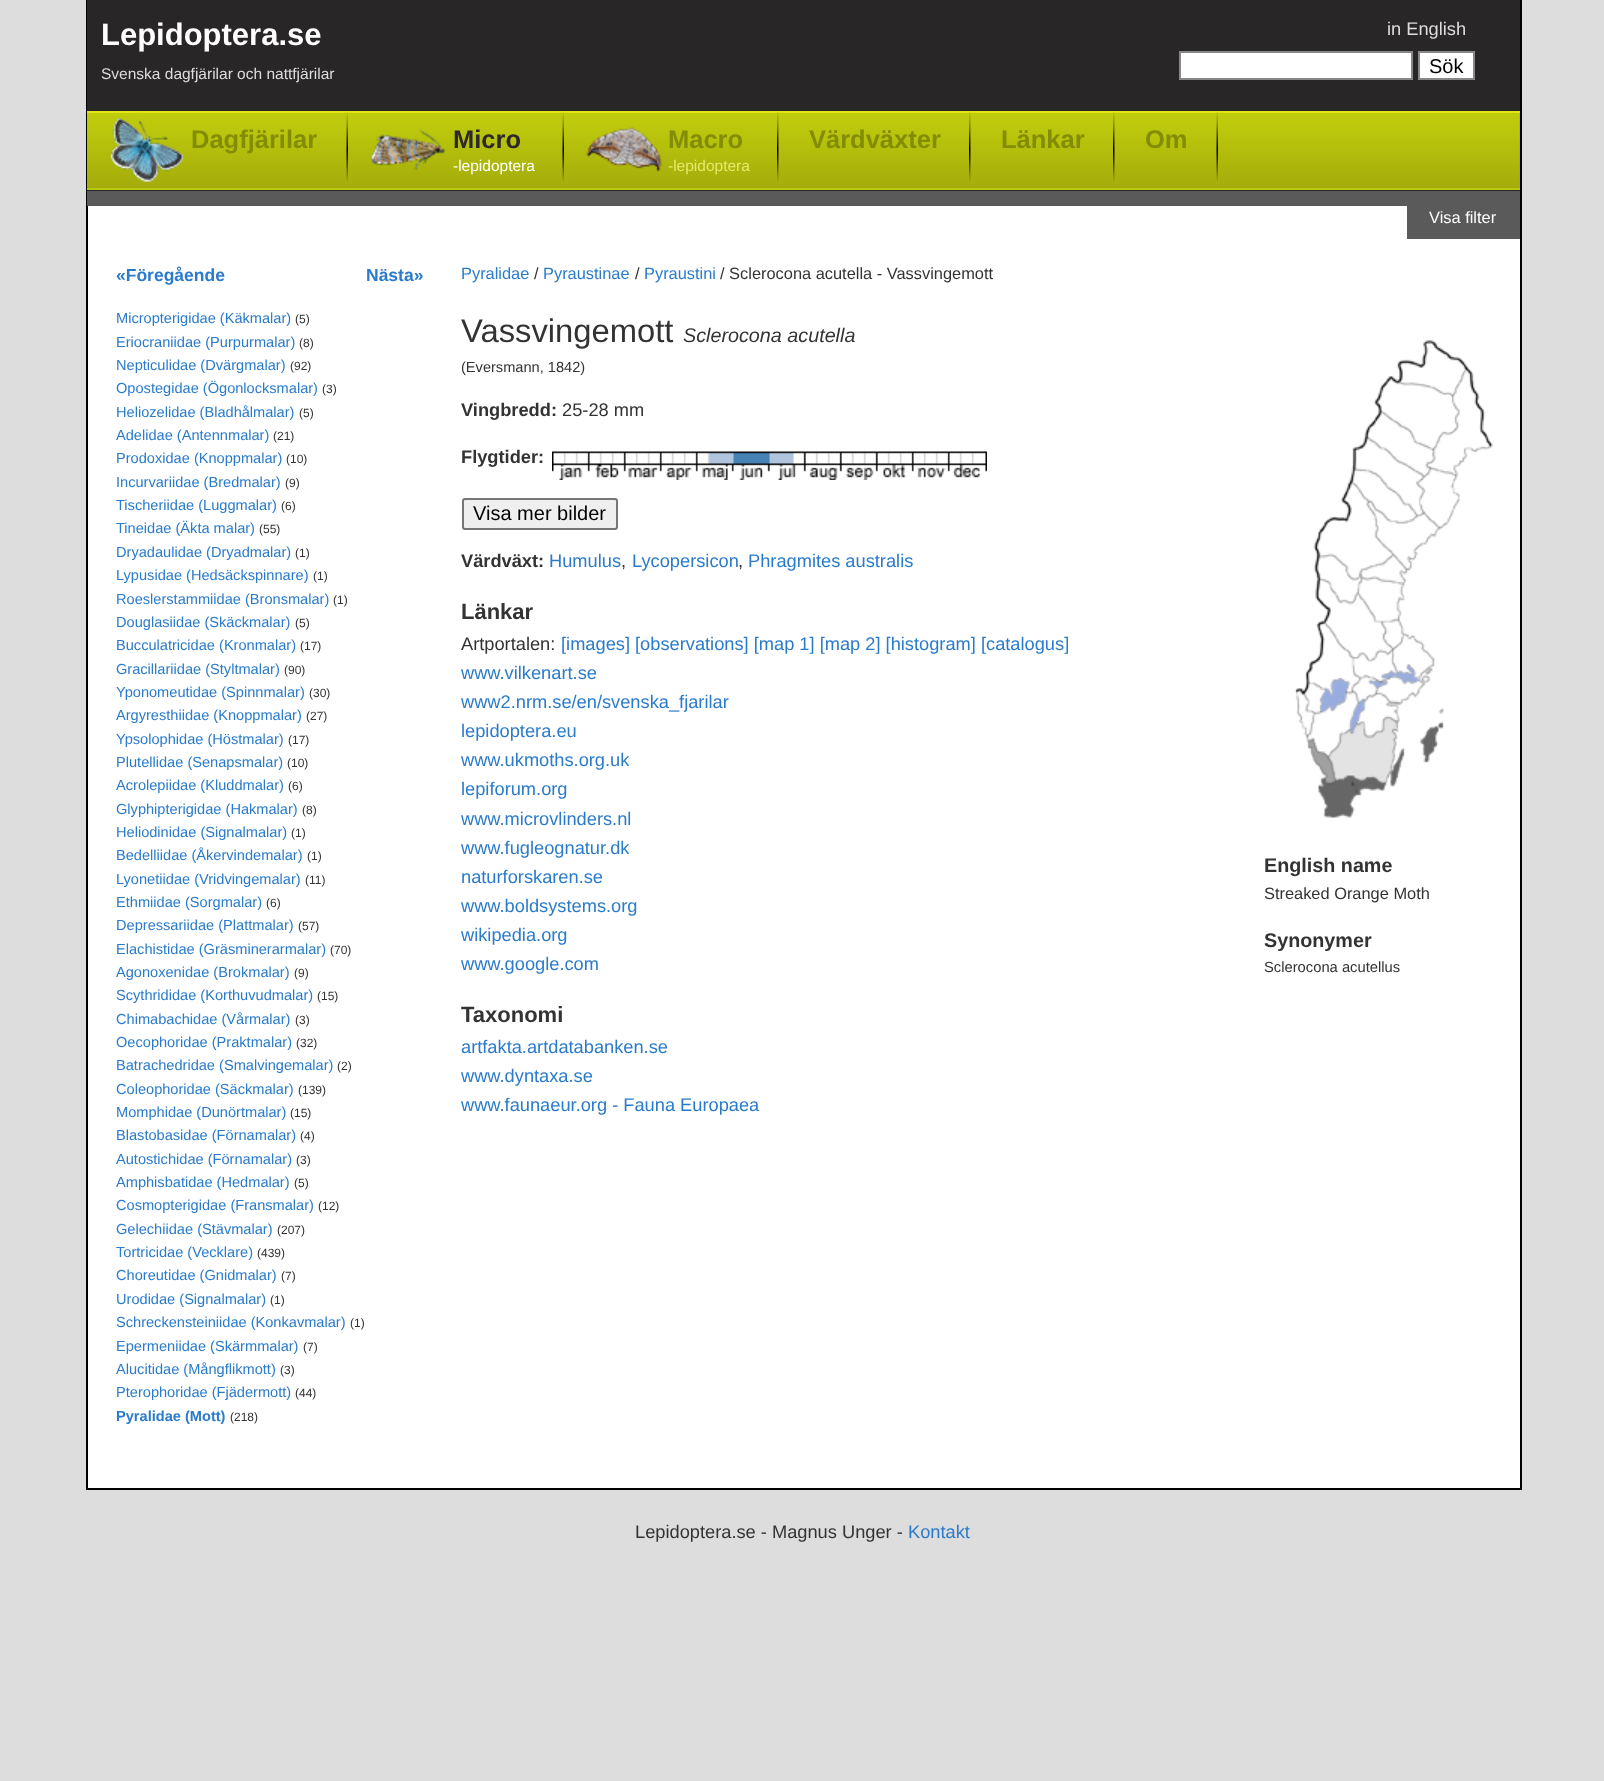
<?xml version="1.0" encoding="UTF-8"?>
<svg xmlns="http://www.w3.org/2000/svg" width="1604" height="1781">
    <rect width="100%" height="100%" fill="#DDDDDD"/>
    <rect x="88" y="206" width="1432" height="1282" fill="#FFFFFF"/>
    <rect x="1520" y="0" width="2" height="1490" fill="#000000"/>
    <rect x="86" y="1488" width="1435" height="2" fill="#000000"/>
    <rect x="86" y="0" width="2" height="1490" fill="#000000"/>
    <rect x="87" y="0" width="1433" height="191" fill="#282627"/>
    <rect x="87" y="191" width="1433" height="15" fill="#5A5A5A"/>
    <text x="101" y="45" font-family="Liberation Sans" font-size="31" font-weight="700" fill="#FFFFFF">Lepidoptera.se</text>
    <text x="101" y="79" font-family="Liberation Sans" font-size="15.5" fill="#DDDDDD">Svenska dagfjärilar och nattfjärilar</text>
    <text x="1387" y="35" font-family="Liberation Sans" font-size="18.25" fill="#DDDDDD">in English</text>
    <rect x="1180" y="52" width="232" height="27" fill="#FFFFFF" stroke="#888888" stroke-width="2"/>
    <rect x="1419" y="52" width="55" height="27" fill="#FFFFFF" stroke="#888888" stroke-width="2"/>
    <text x="1429" y="73" font-family="Liberation Sans" font-size="20" fill="#000000">Sök</text>
    <rect x="87" y="113" width="1433" height="75" fill="#A1AB0C"/>
    <image x="87" y="113" width="1433" height="73" href="img_01.png"/>
    <rect x="87" y="111" width="1433" height="2" fill="#E0E517"/>
    <rect x="87" y="188" width="1433" height="2" fill="#B8CB11"/>
    <image x="346" y="112" width="2" height="70" href="img_02.png"/>
    <image x="110" y="118" width="75" height="65" href="img_03.png"/>
    <text x="191" y="148" font-family="Liberation Sans" font-size="25.5" font-weight="700" fill="#828C04">Dagfjärilar</text>
    <image x="562" y="112" width="2" height="70" href="img_04.png"/>
    <image x="370" y="129" width="76" height="41" href="img_05.png"/>
    <text x="453" y="148" font-family="Liberation Sans" font-size="25.5" font-weight="700" fill="#2E2828">Micro</text>
    <text x="453" y="171" font-family="Liberation Sans" font-size="15.5" fill="#FFFFFF">-lepidoptera</text>
    <image x="777" y="112" width="2" height="70" href="img_06.png"/>
    <image x="586" y="127" width="76" height="45" href="img_07.png"/>
    <text x="668" y="148" font-family="Liberation Sans" font-size="25.5" font-weight="700" fill="#828C04">Macro</text>
    <text x="668" y="171" font-family="Liberation Sans" font-size="15.5" fill="#E5EA69">-lepidoptera</text>
    <image x="969" y="112" width="2" height="70" href="img_06.png"/>
    <text x="809" y="148" font-family="Liberation Sans" font-size="25.5" font-weight="700" fill="#828C04">Värdväxter</text>
    <image x="1113" y="112" width="2" height="70" href="img_06.png"/>
    <text x="1001" y="148" font-family="Liberation Sans" font-size="25.5" font-weight="700" fill="#828C04">Länkar</text>
    <image x="1216" y="112" width="2" height="70" href="img_02.png"/>
    <text x="1145" y="148" font-family="Liberation Sans" font-size="25.5" font-weight="700" fill="#828C04">Om</text>
    <rect x="1407" y="206" width="113" height="33" fill="#5A5A5A"/>
    <text x="1429" y="223" font-family="Liberation Sans" font-size="16.4" fill="#FFFFFF">Visa filter</text>
    <text x="116" y="281" font-family="Liberation Sans" font-size="17.5" font-weight="700" fill="#2A7BCB">«Föregående</text>
    <text x="366" y="281" font-family="Liberation Sans" font-size="17.5" font-weight="700" fill="#2A7BCB">Nästa»</text>
    <text x="116" y="323" font-family="Liberation Sans" font-size="14.6" fill="#2A7BCB">Micropterigidae (Käkmalar)</text>
    <text x="295" y="323" font-family="Liberation Sans" font-size="12" fill="#333333">(5)</text>
    <text x="116" y="347" font-family="Liberation Sans" font-size="14.6" fill="#2A7BCB">Eriocraniidae (Purpurmalar)</text>
    <text x="299" y="347" font-family="Liberation Sans" font-size="12" fill="#333333">(8)</text>
    <text x="116" y="370" font-family="Liberation Sans" font-size="14.6" fill="#2A7BCB">Nepticulidae (Dvärgmalar)</text>
    <text x="290" y="370" font-family="Liberation Sans" font-size="12" fill="#333333">(92)</text>
    <text x="116" y="393" font-family="Liberation Sans" font-size="14.6" fill="#2A7BCB">Opostegidae (Ögonlocksmalar)</text>
    <text x="322" y="393" font-family="Liberation Sans" font-size="12" fill="#333333">(3)</text>
    <text x="116" y="417" font-family="Liberation Sans" font-size="14.6" fill="#2A7BCB">Heliozelidae (Bladhålmalar)</text>
    <text x="299" y="417" font-family="Liberation Sans" font-size="12" fill="#333333">(5)</text>
    <text x="116" y="440" font-family="Liberation Sans" font-size="14.6" fill="#2A7BCB">Adelidae (Antennmalar)</text>
    <text x="273" y="440" font-family="Liberation Sans" font-size="12" fill="#333333">(21)</text>
    <text x="116" y="463" font-family="Liberation Sans" font-size="14.6" fill="#2A7BCB">Prodoxidae (Knoppmalar)</text>
    <text x="286" y="463" font-family="Liberation Sans" font-size="12" fill="#333333">(10)</text>
    <text x="116" y="487" font-family="Liberation Sans" font-size="14.6" fill="#2A7BCB">Incurvariidae (Bredmalar)</text>
    <text x="285" y="487" font-family="Liberation Sans" font-size="12" fill="#333333">(9)</text>
    <text x="116" y="510" font-family="Liberation Sans" font-size="14.6" fill="#2A7BCB">Tischeriidae (Luggmalar)</text>
    <text x="281" y="510" font-family="Liberation Sans" font-size="12" fill="#333333">(6)</text>
    <text x="116" y="533" font-family="Liberation Sans" font-size="14.6" fill="#2A7BCB">Tineidae (Äkta malar)</text>
    <text x="259" y="533" font-family="Liberation Sans" font-size="12" fill="#333333">(55)</text>
    <text x="116" y="557" font-family="Liberation Sans" font-size="14.6" fill="#2A7BCB">Dryadaulidae (Dryadmalar)</text>
    <text x="295" y="557" font-family="Liberation Sans" font-size="12" fill="#333333">(1)</text>
    <text x="116" y="580" font-family="Liberation Sans" font-size="14.6" fill="#2A7BCB">Lypusidae (Hedsäckspinnare)</text>
    <text x="313" y="580" font-family="Liberation Sans" font-size="12" fill="#333333">(1)</text>
    <text x="116" y="604" font-family="Liberation Sans" font-size="14.6" fill="#2A7BCB">Roeslerstammiidae (Bronsmalar)</text>
    <text x="333" y="604" font-family="Liberation Sans" font-size="12" fill="#333333">(1)</text>
    <text x="116" y="627" font-family="Liberation Sans" font-size="14.6" fill="#2A7BCB">Douglasiidae (Skäckmalar)</text>
    <text x="295" y="627" font-family="Liberation Sans" font-size="12" fill="#333333">(5)</text>
    <text x="116" y="650" font-family="Liberation Sans" font-size="14.6" fill="#2A7BCB">Bucculatricidae (Kronmalar)</text>
    <text x="300" y="650" font-family="Liberation Sans" font-size="12" fill="#333333">(17)</text>
    <text x="116" y="674" font-family="Liberation Sans" font-size="14.6" fill="#2A7BCB">Gracillariidae (Styltmalar)</text>
    <text x="284" y="674" font-family="Liberation Sans" font-size="12" fill="#333333">(90)</text>
    <text x="116" y="697" font-family="Liberation Sans" font-size="14.6" fill="#2A7BCB">Yponomeutidae (Spinnmalar)</text>
    <text x="309" y="697" font-family="Liberation Sans" font-size="12" fill="#333333">(30)</text>
    <text x="116" y="720" font-family="Liberation Sans" font-size="14.6" fill="#2A7BCB">Argyresthiidae (Knoppmalar)</text>
    <text x="306" y="720" font-family="Liberation Sans" font-size="12" fill="#333333">(27)</text>
    <text x="116" y="744" font-family="Liberation Sans" font-size="14.6" fill="#2A7BCB">Ypsolophidae (Höstmalar)</text>
    <text x="288" y="744" font-family="Liberation Sans" font-size="12" fill="#333333">(17)</text>
    <text x="116" y="767" font-family="Liberation Sans" font-size="14.6" fill="#2A7BCB">Plutellidae (Senapsmalar)</text>
    <text x="287" y="767" font-family="Liberation Sans" font-size="12" fill="#333333">(10)</text>
    <text x="116" y="790" font-family="Liberation Sans" font-size="14.6" fill="#2A7BCB">Acrolepiidae (Kluddmalar)</text>
    <text x="288" y="790" font-family="Liberation Sans" font-size="12" fill="#333333">(6)</text>
    <text x="116" y="814" font-family="Liberation Sans" font-size="14.6" fill="#2A7BCB">Glyphipterigidae (Hakmalar)</text>
    <text x="302" y="814" font-family="Liberation Sans" font-size="12" fill="#333333">(8)</text>
    <text x="116" y="837" font-family="Liberation Sans" font-size="14.6" fill="#2A7BCB">Heliodinidae (Signalmalar)</text>
    <text x="291" y="837" font-family="Liberation Sans" font-size="12" fill="#333333">(1)</text>
    <text x="116" y="860" font-family="Liberation Sans" font-size="14.6" fill="#2A7BCB">Bedelliidae (Åkervindemalar)</text>
    <text x="307" y="860" font-family="Liberation Sans" font-size="12" fill="#333333">(1)</text>
    <text x="116" y="884" font-family="Liberation Sans" font-size="14.6" fill="#2A7BCB">Lyonetiidae (Vridvingemalar)</text>
    <text x="305" y="884" font-family="Liberation Sans" font-size="12" fill="#333333">(11)</text>
    <text x="116" y="907" font-family="Liberation Sans" font-size="14.6" fill="#2A7BCB">Ethmiidae (Sorgmalar)</text>
    <text x="266" y="907" font-family="Liberation Sans" font-size="12" fill="#333333">(6)</text>
    <text x="116" y="930" font-family="Liberation Sans" font-size="14.6" fill="#2A7BCB">Depressariidae (Plattmalar)</text>
    <text x="298" y="930" font-family="Liberation Sans" font-size="12" fill="#333333">(57)</text>
    <text x="116" y="954" font-family="Liberation Sans" font-size="14.6" fill="#2A7BCB">Elachistidae (Gräsminerarmalar)</text>
    <text x="330" y="954" font-family="Liberation Sans" font-size="12" fill="#333333">(70)</text>
    <text x="116" y="977" font-family="Liberation Sans" font-size="14.6" fill="#2A7BCB">Agonoxenidae (Brokmalar)</text>
    <text x="294" y="977" font-family="Liberation Sans" font-size="12" fill="#333333">(9)</text>
    <text x="116" y="1000" font-family="Liberation Sans" font-size="14.6" fill="#2A7BCB">Scythrididae (Korthuvudmalar)</text>
    <text x="317" y="1000" font-family="Liberation Sans" font-size="12" fill="#333333">(15)</text>
    <text x="116" y="1024" font-family="Liberation Sans" font-size="14.6" fill="#2A7BCB">Chimabachidae (Vårmalar)</text>
    <text x="295" y="1024" font-family="Liberation Sans" font-size="12" fill="#333333">(3)</text>
    <text x="116" y="1047" font-family="Liberation Sans" font-size="14.6" fill="#2A7BCB">Oecophoridae (Praktmalar)</text>
    <text x="296" y="1047" font-family="Liberation Sans" font-size="12" fill="#333333">(32)</text>
    <text x="116" y="1070" font-family="Liberation Sans" font-size="14.6" fill="#2A7BCB">Batrachedridae (Smalvingemalar)</text>
    <text x="337" y="1070" font-family="Liberation Sans" font-size="12" fill="#333333">(2)</text>
    <text x="116" y="1094" font-family="Liberation Sans" font-size="14.6" fill="#2A7BCB">Coleophoridae (Säckmalar)</text>
    <text x="298" y="1094" font-family="Liberation Sans" font-size="12" fill="#333333">(139)</text>
    <text x="116" y="1117" font-family="Liberation Sans" font-size="14.6" fill="#2A7BCB">Momphidae (Dunörtmalar)</text>
    <text x="290" y="1117" font-family="Liberation Sans" font-size="12" fill="#333333">(15)</text>
    <text x="116" y="1140" font-family="Liberation Sans" font-size="14.6" fill="#2A7BCB">Blastobasidae (Förnamalar)</text>
    <text x="300" y="1140" font-family="Liberation Sans" font-size="12" fill="#333333">(4)</text>
    <text x="116" y="1164" font-family="Liberation Sans" font-size="14.6" fill="#2A7BCB">Autostichidae (Förnamalar)</text>
    <text x="296" y="1164" font-family="Liberation Sans" font-size="12" fill="#333333">(3)</text>
    <text x="116" y="1187" font-family="Liberation Sans" font-size="14.6" fill="#2A7BCB">Amphisbatidae (Hedmalar)</text>
    <text x="294" y="1187" font-family="Liberation Sans" font-size="12" fill="#333333">(5)</text>
    <text x="116" y="1210" font-family="Liberation Sans" font-size="14.6" fill="#2A7BCB">Cosmopterigidae (Fransmalar)</text>
    <text x="318" y="1210" font-family="Liberation Sans" font-size="12" fill="#333333">(12)</text>
    <text x="116" y="1234" font-family="Liberation Sans" font-size="14.6" fill="#2A7BCB">Gelechiidae (Stävmalar)</text>
    <text x="277" y="1234" font-family="Liberation Sans" font-size="12" fill="#333333">(207)</text>
    <text x="116" y="1257" font-family="Liberation Sans" font-size="14.6" fill="#2A7BCB">Tortricidae (Vecklare)</text>
    <text x="257" y="1257" font-family="Liberation Sans" font-size="12" fill="#333333">(439)</text>
    <text x="116" y="1280" font-family="Liberation Sans" font-size="14.6" fill="#2A7BCB">Choreutidae (Gnidmalar)</text>
    <text x="281" y="1280" font-family="Liberation Sans" font-size="12" fill="#333333">(7)</text>
    <text x="116" y="1304" font-family="Liberation Sans" font-size="14.6" fill="#2A7BCB">Urodidae (Signalmalar)</text>
    <text x="270" y="1304" font-family="Liberation Sans" font-size="12" fill="#333333">(1)</text>
    <text x="116" y="1327" font-family="Liberation Sans" font-size="14.6" fill="#2A7BCB">Schreckensteiniidae (Konkavmalar)</text>
    <text x="350" y="1327" font-family="Liberation Sans" font-size="12" fill="#333333">(1)</text>
    <text x="116" y="1351" font-family="Liberation Sans" font-size="14.6" fill="#2A7BCB">Epermeniidae (Skärmmalar)</text>
    <text x="303" y="1351" font-family="Liberation Sans" font-size="12" fill="#333333">(7)</text>
    <text x="116" y="1374" font-family="Liberation Sans" font-size="14.6" fill="#2A7BCB">Alucitidae (Mångflikmott)</text>
    <text x="280" y="1374" font-family="Liberation Sans" font-size="12" fill="#333333">(3)</text>
    <text x="116" y="1397" font-family="Liberation Sans" font-size="14.6" fill="#2A7BCB">Pterophoridae (Fjädermott)</text>
    <text x="295" y="1397" font-family="Liberation Sans" font-size="12" fill="#333333">(44)</text>
    <text x="116" y="1421" font-family="Liberation Sans" font-size="14.6" font-weight="700" fill="#2A7BCB">Pyralidae (Mott)</text>
    <text x="230" y="1421" font-family="Liberation Sans" font-size="12" fill="#333333">(218)</text>
    <text x="461" y="279" font-family="Liberation Sans" font-size="16.4" fill="#2A7BCB">Pyralidae</text>
    <text x="534" y="279" font-family="Liberation Sans" font-size="16.4" fill="#333333">/</text>
    <text x="543" y="279" font-family="Liberation Sans" font-size="16.4" fill="#2A7BCB">Pyraustinae</text>
    <text x="635" y="279" font-family="Liberation Sans" font-size="16.4" fill="#333333">/</text>
    <text x="644" y="279" font-family="Liberation Sans" font-size="16.4" fill="#2A7BCB">Pyraustini</text>
    <text x="720" y="279" font-family="Liberation Sans" font-size="16.4" fill="#333333">/ Sclerocona acutella - Vassvingemott</text>
    <text x="461" y="342" font-family="Liberation Sans" font-size="32.75" fill="#333333">Vassvingemott</text>
    <text x="683" y="342" font-family="Liberation Sans" font-size="19.75" font-style="italic" fill="#333333">Sclerocona acutella</text>
    <text x="461" y="372" font-family="Liberation Sans" font-size="14.6" fill="#333333">(Eversmann, 1842)</text>
    <text x="461" y="416" font-family="Liberation Sans" font-size="18.25" font-weight="700" fill="#333333">Vingbredd:</text>
    <text x="562" y="416" font-family="Liberation Sans" font-size="18.25" fill="#333333">25-28 mm</text>
    <text x="461" y="463" font-family="Liberation Sans" font-size="18.25" font-weight="700" fill="#333333">Flygtider:</text>
    <image x="552" y="451" width="435" height="29" href="img_08.png"/>
    <rect x="463" y="499" width="154" height="30" rx="2" fill="#EFEFEF" stroke="#767676" stroke-width="2"/>
    <text x="473" y="520" font-family="Liberation Sans" font-size="20" fill="#000000">Visa mer bilder</text>
    <text x="461" y="567" font-family="Liberation Sans" font-size="18.25" font-weight="700" fill="#333333">Värdväxt:</text>
    <text x="549" y="567" font-family="Liberation Sans" font-size="18.25" fill="#2A7BCB">Humulus</text>
    <text x="621" y="567" font-family="Liberation Sans" font-size="18.25" fill="#333333">,</text>
    <text x="632" y="567" font-family="Liberation Sans" font-size="18.25" fill="#2A7BCB">Lycopersicon</text>
    <text x="738" y="567" font-family="Liberation Sans" font-size="18.25" fill="#333333">,</text>
    <text x="748" y="567" font-family="Liberation Sans" font-size="18.25" fill="#2A7BCB">Phragmites australis</text>
    <text x="461" y="619" font-family="Liberation Sans" font-size="22" font-weight="700" fill="#333333">Länkar</text>
    <text x="461" y="650" font-family="Liberation Sans" font-size="18.25" fill="#333333">Artportalen:</text>
    <text x="561" y="650" font-family="Liberation Sans" font-size="18.25" fill="#2A7BCB">[images] [observations] [map 1] [map 2] [histogram] [catalogus]</text>
    <text font-family="Liberation Sans" font-size="18.25" fill="#2A7BCB">
        <tspan x="461" y="679">www.vilkenart.se</tspan>
        <tspan x="461" y="708">www2.nrm.se/en/svenska_fjarilar</tspan>
        <tspan x="461" y="737">lepidoptera.eu</tspan>
        <tspan x="461" y="766">www.ukmoths.org.uk</tspan>
        <tspan x="461" y="795">lepiforum.org</tspan>
        <tspan x="461" y="825">www.microvlinders.nl</tspan>
        <tspan x="461" y="854">www.fugleognatur.dk</tspan>
        <tspan x="461" y="883">naturforskaren.se</tspan>
        <tspan x="461" y="912">www.boldsystems.org</tspan>
        <tspan x="461" y="941">wikipedia.org</tspan>
        <tspan x="461" y="970">www.google.com</tspan>
    </text>
    <text x="461" y="1022" font-family="Liberation Sans" font-size="22" font-weight="700" fill="#333333">Taxonomi</text>
    <text font-family="Liberation Sans" font-size="18.25" fill="#2A7BCB">
        <tspan x="461" y="1053">artfakta.artdatabanken.se</tspan>
        <tspan x="461" y="1082">www.dyntaxa.se</tspan>
        <tspan x="461" y="1111">www.faunaeur.org - Fauna Europaea</tspan>
    </text>
    <image x="1295" y="340" width="198" height="478" href="img_09.png"/>
    <text x="1264" y="872" font-family="Liberation Sans" font-size="19.75" font-weight="700" fill="#333333">English name</text>
    <text x="1264" y="899" font-family="Liberation Sans" font-size="16.4" fill="#333333">Streaked Orange Moth</text>
    <text x="1264" y="947" font-family="Liberation Sans" font-size="19.75" font-weight="700" fill="#333333">Synonymer</text>
    <text x="1264" y="972" font-family="Liberation Sans" font-size="14.75" fill="#333333">Sclerocona acutellus</text>
    <text x="635" y="1538" font-family="Liberation Sans" font-size="18.25" fill="#333333">Lepidoptera.se - Magnus Unger -</text>
    <text x="908" y="1538" font-family="Liberation Sans" font-size="18.25" fill="#2A7BCB">Kontakt</text>
</svg>
